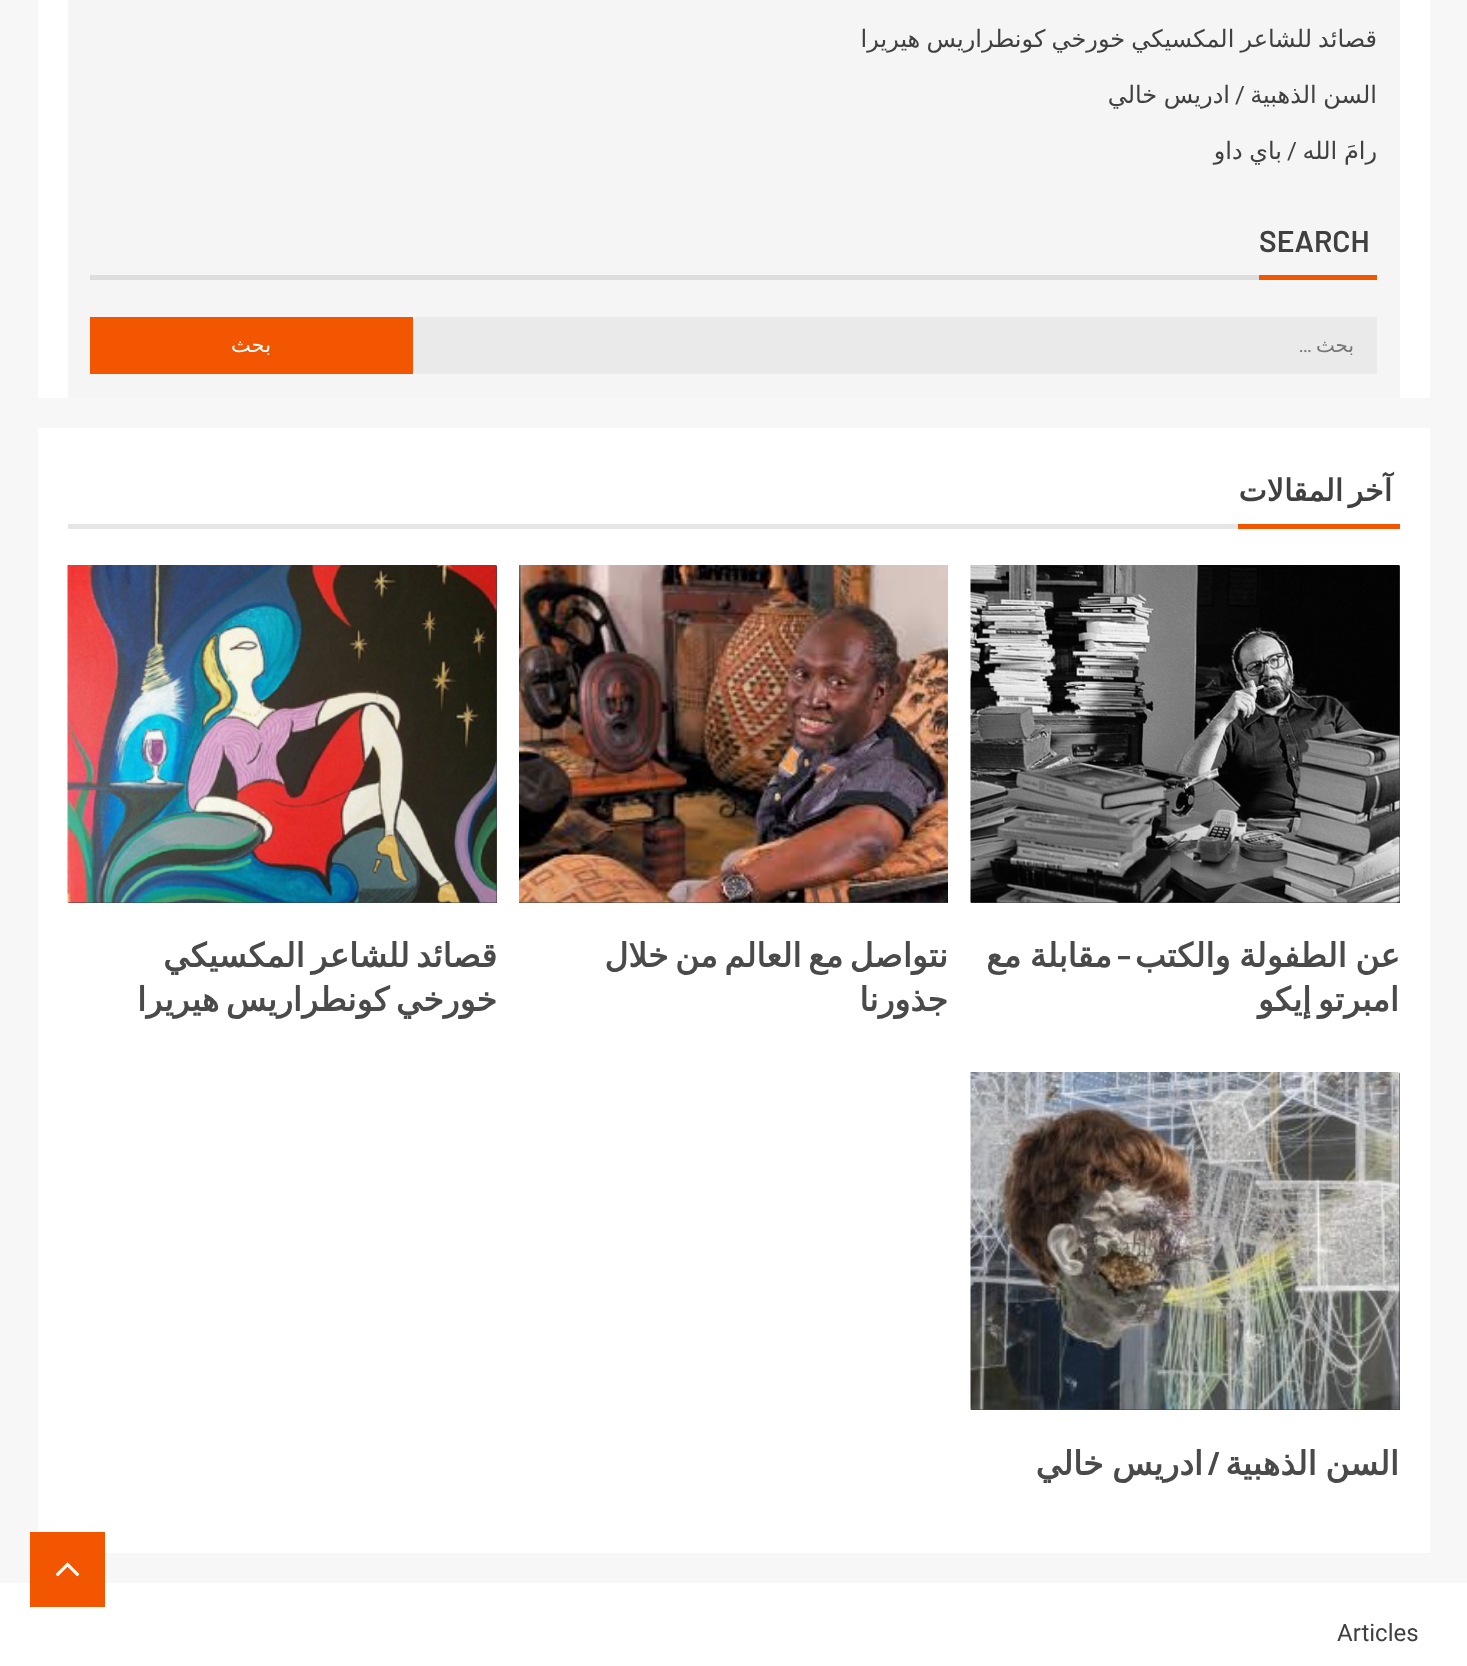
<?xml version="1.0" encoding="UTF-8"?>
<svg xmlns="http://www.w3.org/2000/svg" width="1467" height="1666">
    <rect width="100%" height="100%" fill="#F7F7F7"/>
    <rect x="38" y="0" width="1392" height="398" fill="#FFFFFF"/>
    <rect x="68" y="0" width="1332" height="398" fill="#F5F5F5"/>
    <text x="1377" y="47" word-spacing="-1.5" font-family="DejaVu Sans" font-size="24" direction="rtl" fill="#404040">قصائد للشاعر المكسيكي خورخي كونطراريس هيريرا</text>
    <text x="1377" y="103" word-spacing="-1" font-family="DejaVu Sans" font-size="24" direction="rtl" fill="#404040">السن الذهبية</text>
    <text x="1245" y="103" font-family="Roboto" font-size="24" direction="rtl" fill="#404040">/</text>
    <text x="1230" y="103" word-spacing="-1" font-family="DejaVu Sans" font-size="24" direction="rtl" fill="#404040">ادريس خالي</text>
    <text x="1377" y="159" word-spacing="-1" font-family="DejaVu Sans" font-size="24" direction="rtl" fill="#404040">رامَ الله</text>
    <text x="1297" y="159" font-family="Roboto" font-size="24" direction="rtl" fill="#404040">/</text>
    <text x="1282" y="159" word-spacing="-1" font-family="DejaVu Sans" font-size="24" direction="rtl" fill="#404040">باي داو</text>
    <text x="1259" y="252" font-family="Barlow" font-size="30" font-weight="600" fill="#404040">SEARCH</text>
    <rect x="1259" y="275" width="118" height="5" fill="#F25600"/>
    <rect x="90" y="275" width="1169" height="5" fill="#DDDDDD"/>
    <path d="M 418 317 H 1377 V 374 H 418 C 415 374 413 372 413 369 V 322 C 413 319 415 317 418 317 Z" fill="#EAEAEA"/>
    <text x="1354" y="352" font-family="DejaVu Sans" font-size="20" direction="rtl" fill="#757575">بحث</text>
    <text x="1312" y="352" font-family="Roboto" font-size="20" direction="rtl" fill="#757575">…</text>
    <rect x="90" y="317" width="323" height="57" fill="#F25600"/>
    <text x="271" y="352" font-family="DejaVu Sans" font-size="21" direction="rtl" fill="#FFFFFF">بحث</text>
    <rect x="38" y="428" width="1392" height="1125" fill="#FFFFFF"/>
    <text x="1392" y="501" word-spacing="-4" font-family="DejaVu Sans" font-size="30" font-weight="700" direction="rtl" fill="#404040">آخر المقالات</text>
    <rect x="1238" y="524" width="162" height="5" fill="#F25600"/>
    <rect x="68" y="524" width="1170" height="5" fill="#E6E6E6"/>
    <rect x="971" y="566" width="429" height="337" fill="#404040"/>
    <image x="970" y="565" width="430" height="338" href="img_01.png"/>
    <text x="1400" y="967" word-spacing="-2" font-family="DejaVu Sans" font-size="33" font-weight="700" direction="rtl" fill="#4A4A4A">عن الطفولة والكتب</text>
    <text x="1131" y="967" font-family="Barlow Semi Condensed" font-size="33" font-weight="600" direction="rtl" fill="#4A4A4A">–</text>
    <text x="1112" y="967" word-spacing="-2" font-family="DejaVu Sans" font-size="33" font-weight="700" direction="rtl" fill="#4A4A4A">مقابلة مع</text>
    <text x="1399" y="1011" word-spacing="-4" font-family="DejaVu Sans" font-size="33" font-weight="700" direction="rtl" fill="#4A4A4A">امبرتو إيكو</text>
    <rect x="519" y="902" width="429" height="1" fill="#404040"/>
    <image x="519" y="565" width="429" height="338" href="img_02.png"/>
    <text font-family="DejaVu Sans" font-size="33" font-weight="700" direction="rtl" fill="#4A4A4A">
        <tspan x="948" y="967" word-spacing="-4">نتواصل مع العالم من خلال</tspan>
        <tspan x="948" y="1011">جذورنا</tspan>
    </text>
    <rect x="68" y="566" width="429" height="337" fill="#404040"/>
    <image x="67" y="565" width="430" height="338" href="img_03.png"/>
    <text font-family="DejaVu Sans" font-size="33" font-weight="700" direction="rtl" fill="#4A4A4A">
        <tspan x="497" y="967" word-spacing="-4">قصائد للشاعر المكسيكي</tspan>
        <tspan x="497" y="1011" word-spacing="-4">خورخي كونطراريس هيريرا</tspan>
    </text>
    <rect x="971" y="1073" width="429" height="337" fill="#404040"/>
    <image x="970" y="1072" width="430" height="338" href="img_04.png"/>
    <text x="1399" y="1475" word-spacing="-2" font-family="DejaVu Sans" font-size="33" font-weight="700" direction="rtl" fill="#4A4A4A">السن الذهبية</text>
    <text x="1221" y="1475" font-family="Barlow Semi Condensed" font-size="33" font-weight="600" direction="rtl" fill="#4A4A4A">/</text>
    <text x="1203" y="1475" word-spacing="-2" font-family="DejaVu Sans" font-size="33" font-weight="700" direction="rtl" fill="#4A4A4A">ادريس خالي</text>
    <rect x="0" y="1583" width="1467" height="83" fill="#FFFFFF"/>
    <text x="1337" y="1641" font-family="Roboto" font-size="24" fill="#404040">Articles</text>
    <rect x="30" y="1532" width="75" height="75" fill="#F25600"/>
    <image x="55" y="1562" width="25" height="15" href="img_05.png"/>
</svg>
